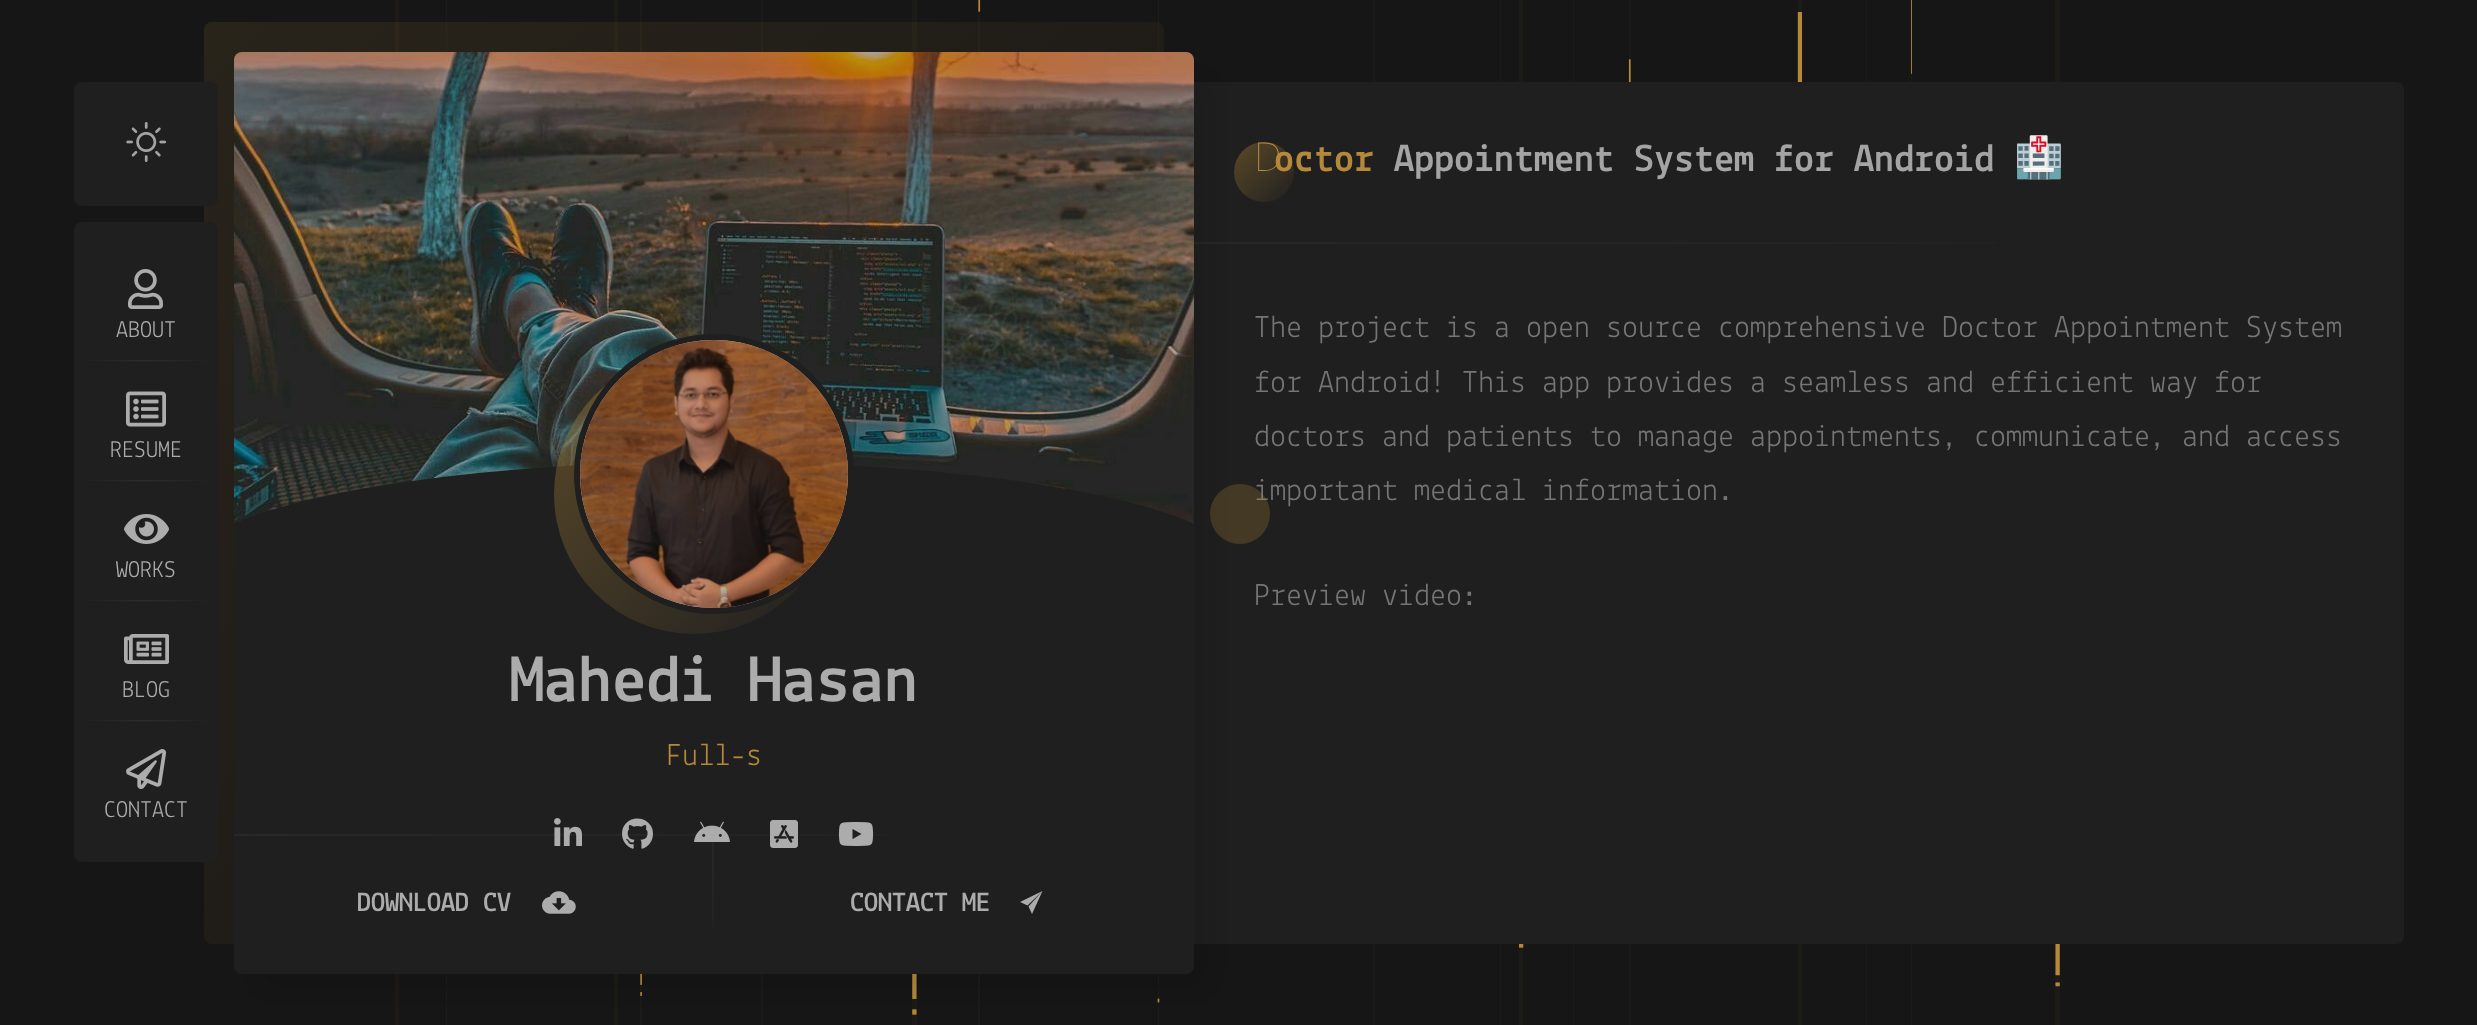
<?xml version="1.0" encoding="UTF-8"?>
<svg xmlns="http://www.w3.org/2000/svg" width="2477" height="1025">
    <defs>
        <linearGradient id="g1" gradientUnits="userSpaceOnUse" x1="1234" y1="142" x2="1294" y2="202"><stop offset="0" stop-color="#5B4928"/><stop offset="1" stop-color="#20201F"/></linearGradient>
        <radialGradient id="g2" gradientUnits="userSpaceOnUse" cx="0" cy="0" r="1" gradientTransform="matrix(1626 0 0 1.4 1194 243)"><stop offset="0" stop-color="#303032"/><stop offset="0.7" stop-color="#1F1F1F"/></radialGradient>
        <filter id="blur1" x="-50%" y="-200%" width="200%" height="500%"><feGaussianBlur stdDeviation="15"/></filter>
        <linearGradient id="g3" gradientUnits="userSpaceOnUse" x1="213" y1="13" x2="1155" y2="954"><stop offset="0" stop-color="#B58938" stop-opacity="0.12"/><stop offset="1" stop-color="#B58938" stop-opacity="0"/></linearGradient>
        <radialGradient id="g4" gradientUnits="userSpaceOnUse" cx="0" cy="0" r="1" gradientTransform="matrix(102 0 0 2.8 146 360)"><stop offset="0" stop-color="#303032"/><stop offset="0.7" stop-color="#1F1F1F"/></radialGradient>
        <radialGradient id="g5" gradientUnits="userSpaceOnUse" cx="0" cy="0" r="1" gradientTransform="matrix(102 0 0 2.8 146 480)"><stop offset="0" stop-color="#303032"/><stop offset="0.7" stop-color="#1F1F1F"/></radialGradient>
        <radialGradient id="g6" gradientUnits="userSpaceOnUse" cx="0" cy="0" r="1" gradientTransform="matrix(102 0 0 2.8 146 600)"><stop offset="0" stop-color="#303032"/><stop offset="0.7" stop-color="#1F1F1F"/></radialGradient>
        <radialGradient id="g7" gradientUnits="userSpaceOnUse" cx="0" cy="0" r="1" gradientTransform="matrix(102 0 0 2.8 146 720)"><stop offset="0" stop-color="#303032"/><stop offset="0.7" stop-color="#1F1F1F"/></radialGradient>
        <linearGradient id="g8" gradientUnits="userSpaceOnUse" x1="554" y1="354" x2="834" y2="634"><stop offset="0" stop-color="#B58938" stop-opacity="0.4"/><stop offset="1" stop-color="#B58938" stop-opacity="0.01"/></linearGradient>
        <radialGradient id="g9" gradientUnits="userSpaceOnUse" cx="0" cy="0" r="1" gradientTransform="matrix(1358 0 0 1.4 234 835)"><stop offset="0" stop-color="#92969E" stop-opacity="0.15"/><stop offset="0.7" stop-color="#92969E" stop-opacity="0"/></radialGradient>
        <radialGradient id="g10" gradientUnits="userSpaceOnUse" cx="0" cy="0" r="1" gradientTransform="matrix(1.4 0 0 198 713 834)"><stop offset="0" stop-color="#92969E" stop-opacity="0.15"/><stop offset="0.7" stop-color="#92969E" stop-opacity="0"/></radialGradient>
    </defs>
    <rect width="100%" height="100%" fill="#161616"/>
    <image x="395" y="0" width="1665" height="1025" href="img_01.png"/>
    <path d="M 1194 82 H 2396 C 2400.5 82 2404 85.5 2404 90 V 936 C 2404 940.5 2400.5 944 2396 944 H 1194 Z" fill="#1F1F1F"/>
    <circle cx="1264" cy="172" r="30" fill="url(#g1)"/>
    <rect x="1194" y="242" width="802" height="2" fill="url(#g2)"/>
    <rect x="254" y="72" width="960" height="922" rx="8" fill="#060606" fill-opacity="0.1" filter="url(#blur1)"/>
    <rect x="204" y="22" width="960" height="922" rx="8" fill="url(#g3)"/>
    <rect x="74" y="82" width="144" height="124" rx="8" fill="#1F1F1F"/>
    <image x="126" y="122" width="41" height="40" href="img_02.png"/>
    <rect x="74" y="222" width="144" height="640" rx="8" fill="#1F1F1F"/>
    <image x="128" y="269" width="35" height="40" href="img_03.png"/>
    <text x="116" y="337" font-family="Lekton" font-size="24" fill="#ACACAC">ABOUT</text>
    <rect x="87" y="360" width="118" height="2" fill="url(#g4)"/>
    <image x="126" y="391" width="40" height="36" href="img_04.png"/>
    <text x="110" y="457" font-family="Lekton" font-size="24" fill="#ACACAC">RESUME</text>
    <rect x="87" y="480" width="118" height="2" fill="url(#g5)"/>
    <image x="124" y="514" width="45" height="30" href="img_05.png"/>
    <text x="116" y="577" font-family="Lekton" font-size="24" fill="#ACACAC">WORKS</text>
    <rect x="87" y="600" width="118" height="2" fill="url(#g6)"/>
    <image x="124" y="634" width="45" height="30" href="img_06.png"/>
    <text x="122" y="697" font-family="Lekton" font-size="24" fill="#ACACAC">BLOG</text>
    <rect x="87" y="720" width="118" height="2" fill="url(#g7)"/>
    <image x="126" y="749" width="41" height="40" href="img_07.png"/>
    <text x="104" y="817" font-family="Lekton" font-size="24" fill="#ACACAC">CONTACT</text>
    <rect x="234" y="52" width="960" height="922" rx="8" fill="#1F1F1F"/>
    <image x="234" y="52" width="960" height="472" href="img_08.png"/>
    <path d="M 714 462 C 930 462 1116 488 1194 524 V 662 H 234 V 524 C 312 488 498 462 714 462 Z" fill="#1F1F1F"/>
    <circle cx="694" cy="494" r="140" fill="url(#g8)"/>
    <circle cx="714" cy="474" r="137" fill="#BBBBBB" stroke="#1F1F1F" stroke-width="6"/>
    <image x="580" y="340" width="268" height="268" href="img_09.png"/>
    <text x="510" y="701" font-family="Lekton" font-size="68" font-weight="700" fill="#ACACAC">Mahedi Hasan</text>
    <text x="666" y="765" font-family="Lekton" font-size="32" fill="#B58938">Full-s</text>
    <image x="554" y="818" width="28" height="28" href="img_10.png"/>
    <image x="622" y="818" width="31" height="31" href="img_11.png"/>
    <image x="694" y="821" width="36" height="21" href="img_12.png"/>
    <image x="770" y="820" width="28" height="28" href="img_13.png"/>
    <image x="838" y="822" width="36" height="24" href="img_14.png"/>
    <rect x="234" y="834" width="655" height="2" fill="url(#g9)"/>
    <text x="357" y="911" font-family="Lekton" font-size="28" font-weight="700" fill="#ACACAC">DOWNLOAD CV</text>
    <image x="542" y="891" width="34" height="23" href="img_15.png"/>
    <rect x="712" y="834" width="2" height="95" fill="url(#g10)"/>
    <text x="850" y="911" font-family="Lekton" font-size="28" font-weight="700" fill="#ACACAC">CONTACT ME</text>
    <path d="M 1020 902 L 1042.5 891 L 1027.5 905.5 Z M 1042.5 891 L 1032 914 L 1028.5 906.5 Z" fill="#ACACAC"/>
    <text x="2014" y="171" font-family="Noto Color Emoji" font-size="40" font-weight="700" fill="#A4A4A4">🏥</text>
    <text x="1254" y="171" font-family="Noto Sans" font-size="40" font-weight="100" fill="#B58938">D</text>
    <text x="1274" y="171" font-family="Lekton" font-size="40" font-weight="700" fill="#B58938">octor</text>
    <text x="1394" y="171" font-family="Lekton" font-size="40" font-weight="700" fill="#A4A4A4">Appointment System for Android</text>
    <text font-family="Lekton" font-size="32" fill="#757575">
        <tspan x="1254" y="337">The project is a open source comprehensive Doctor Appointment System</tspan>
        <tspan x="1254" y="392">for Android! This app provides a seamless and efficient way for</tspan>
        <tspan x="1254" y="446">doctors and patients to manage appointments, communicate, and access</tspan>
        <tspan x="1254" y="500">important medical information.</tspan>
    </text>
    <text x="1254" y="605" font-family="Lekton" font-size="32" fill="#757575">Preview video:</text>
    <circle cx="1240" cy="514" r="30" fill="#B58938" fill-opacity="0.25"/>
</svg>
